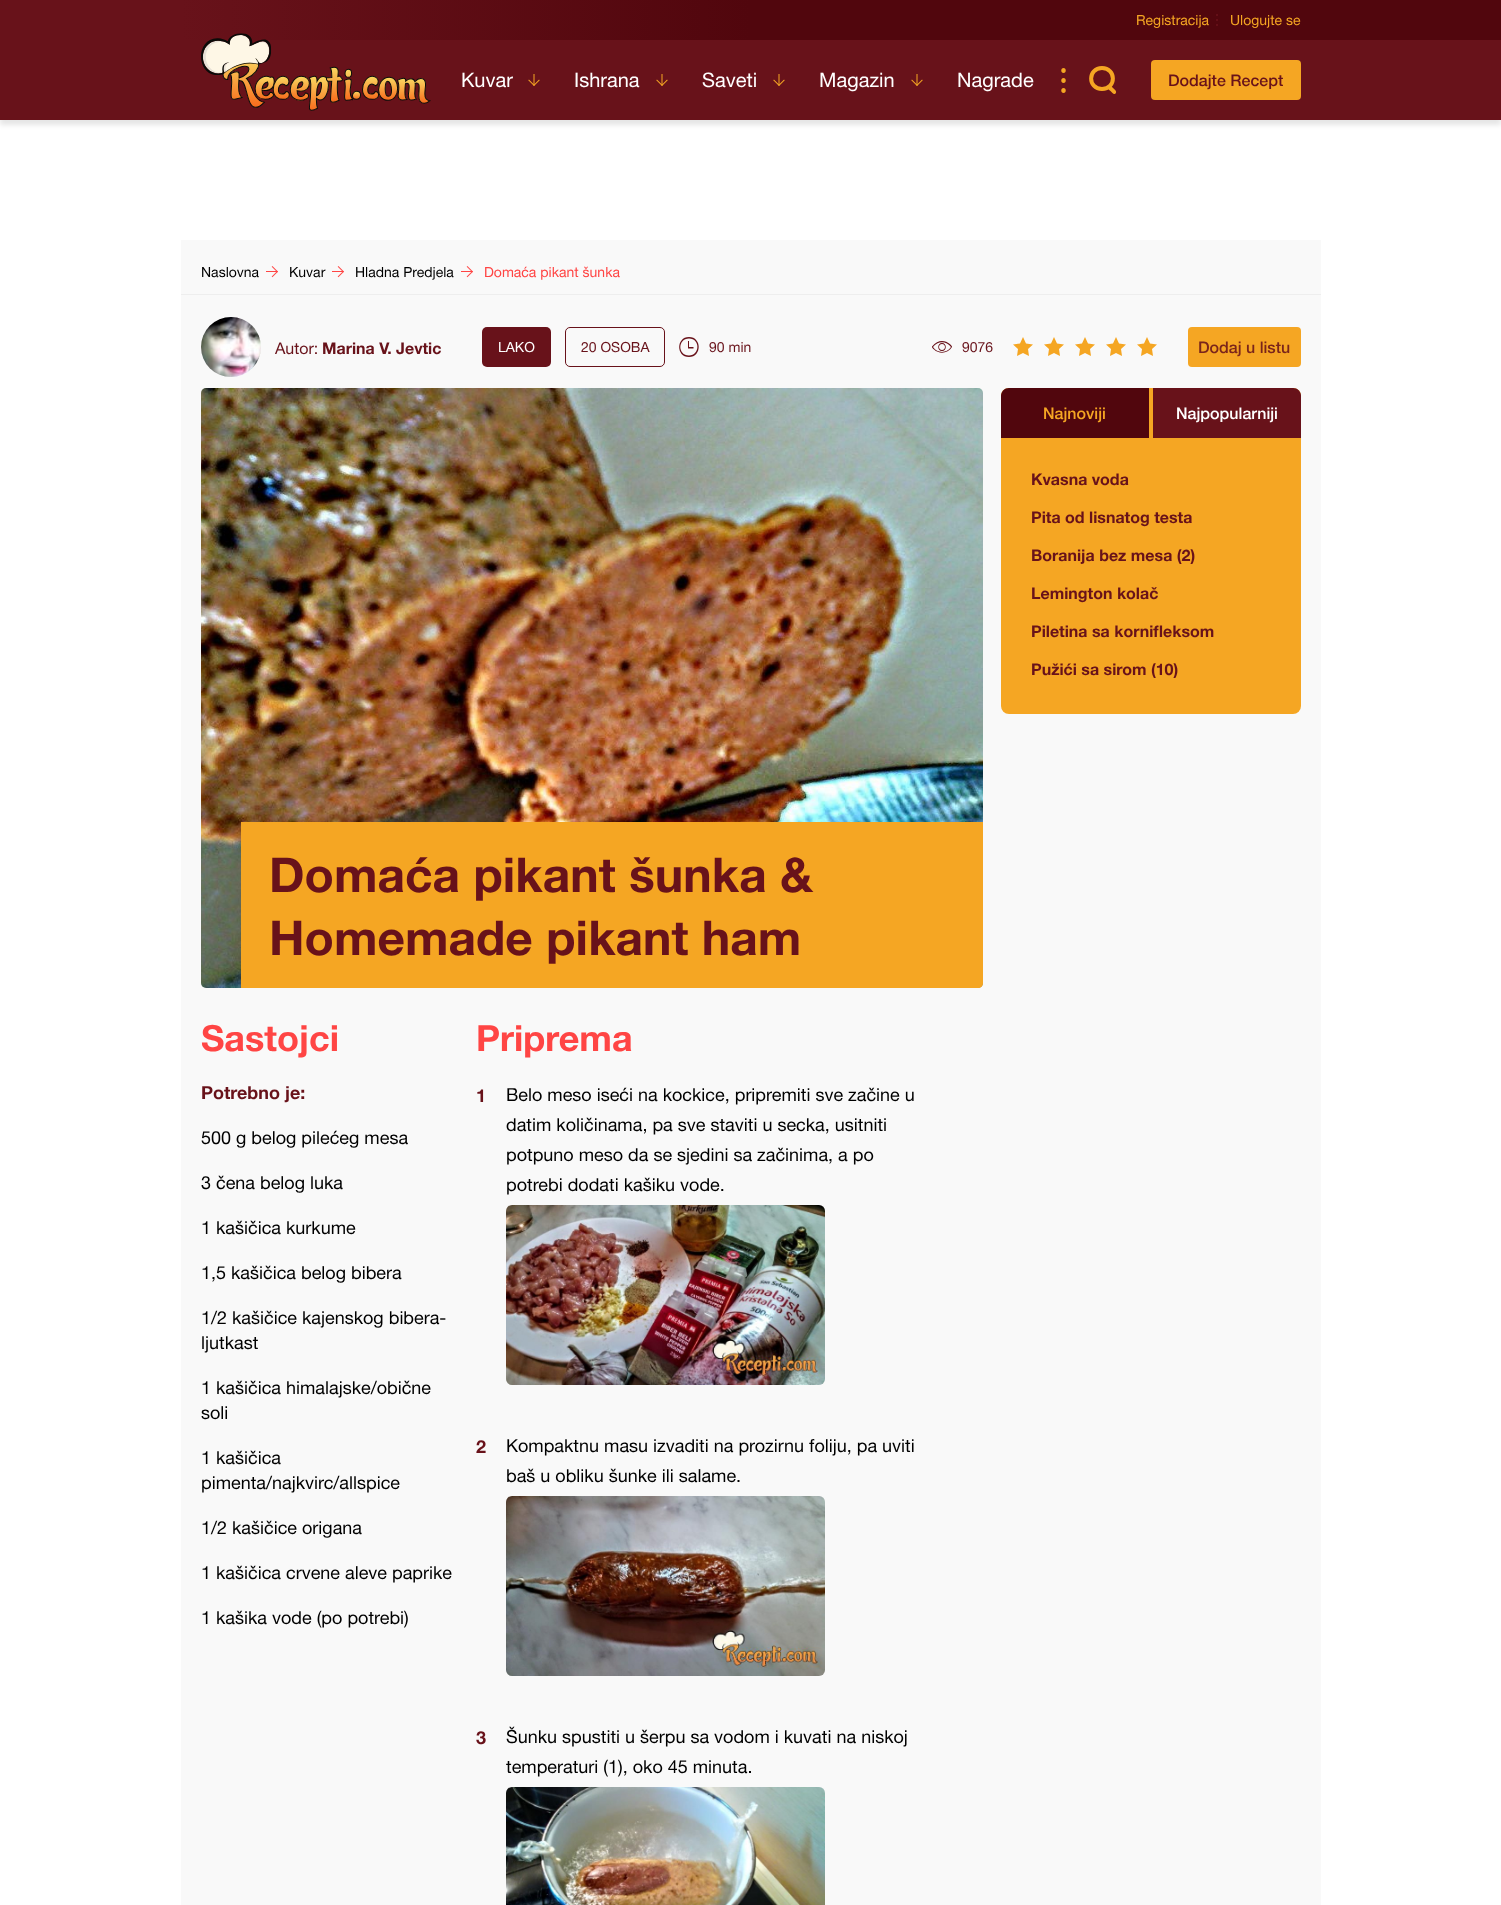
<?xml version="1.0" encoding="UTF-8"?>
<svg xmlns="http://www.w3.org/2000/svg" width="1501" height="1905">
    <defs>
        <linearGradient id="g1" gradientUnits="userSpaceOnUse" x1="181" y1="20" x2="1321" y2="20"><stop offset="0" stop-color="#68121A"/><stop offset="0.5" stop-color="#51060D"/><stop offset="1" stop-color="#51060D"/></linearGradient>
        <filter id="blur1" x="-50%" y="-200%" width="200%" height="500%"><feGaussianBlur stdDeviation="2.5"/></filter>
    </defs>
    <rect width="100%" height="100%" fill="#FFFFFF"/>
    <rect x="0" y="0" width="181" height="40" fill="#68121A"/>
    <rect x="181" y="0" width="1120" height="40" fill="url(#g1)"/>
    <path d="M 1217 16 C 1215.5 16 1215.5 14 1217 14 C 1218.5 14 1218.5 16 1217 16 Z M 1217 21 C 1215.5 21 1215.5 19 1217 19 C 1218.5 19 1218.5 21 1217 21 Z M 1217 26 C 1215.5 26 1215.5 24 1217 24 C 1218.5 24 1218.5 26 1217 26 Z" fill="#68121A"/>
    <text x="1136" y="25" font-family="Helvetica Neue" font-size="14" fill="#F5A623">Registracija</text>
    <text x="1230" y="25" font-family="Helvetica Neue" font-size="14" fill="#F5A623">Ulogujte se</text>
    <rect x="1301" y="0" width="200" height="40" fill="#51060D"/>
    <rect x="0" y="45" width="1501" height="80" fill="#000000" fill-opacity="0.1" filter="url(#blur1)"/>
    <rect x="0" y="40" width="1501" height="80" fill="#68121A"/>
    <image x="201" y="33" width="230" height="78" href="img_01.png"/>
    <image x="528" y="74" width="12" height="12" href="img_02.png"/>
    <text x="461" y="87" font-family="Helvetica Neue" font-size="20" fill="#FFFFFF">Kuvar</text>
    <image x="656" y="74" width="12" height="12" href="img_02.png"/>
    <text x="574" y="87" font-family="Helvetica Neue" font-size="20" fill="#FFFFFF">Ishrana</text>
    <image x="773" y="74" width="12" height="12" href="img_02.png"/>
    <text x="702" y="87" font-family="Helvetica Neue" font-size="20" fill="#FFFFFF">Saveti</text>
    <image x="911" y="74" width="12" height="12" href="img_02.png"/>
    <text x="819" y="87" font-family="Helvetica Neue" font-size="20" fill="#FFFFFF">Magazin</text>
    <text x="957" y="87" font-family="Helvetica Neue" font-size="20" fill="#FFFFFF">Nagrade</text>
    <path d="M 1063.5 73 C 1066.5 73 1066.5 68 1063.5 68 C 1060.5 68 1060.5 73 1063.5 73 Z M 1063.5 83 C 1066.5 83 1066.5 78 1063.5 78 C 1060.5 78 1060.5 83 1063.5 83 Z M 1063.5 93 C 1066.5 93 1066.5 88 1063.5 88 C 1060.5 88 1060.5 93 1063.5 93 Z" fill="#F5A623"/>
    <path d="M 1102 89 C 1116.5 89 1116.5 68 1102 68 C 1087.5 68 1087.5 89 1102 89 Z" fill="none" stroke="#F5A623" stroke-width="4"/>
    <path d="M 1108 86 C 1110 84 1112 87 1113 88 C 1114.5 89.5 1117.5 91.5 1115.5 93.5 C 1114 95.5 1111.5 92 1110.5 91 C 1109 90 1106 87.5 1108 86 Z" fill="#F5A623"/>
    <rect x="1151" y="60" width="150" height="40" rx="4" fill="#F5A623"/>
    <text x="1168" y="86" font-family="Helvetica Neue" font-size="16" font-weight="500" fill="#68121A">Dodajte Recept</text>
    <rect x="181" y="240" width="1140" height="54" fill="#F9F9F9"/>
    <text x="201" y="277" font-family="Helvetica Neue" font-size="14" fill="#000000">Naslovna</text>
    <image x="266" y="266" width="12" height="12" href="img_03.png"/>
    <text x="289" y="277" font-family="Helvetica Neue" font-size="14" fill="#000000">Kuvar</text>
    <image x="332" y="266" width="12" height="12" href="img_03.png"/>
    <text x="355" y="277" font-family="Helvetica Neue" font-size="14" fill="#000000">Hladna Predjela</text>
    <image x="461" y="266" width="12" height="12" href="img_03.png"/>
    <text x="484" y="277" font-family="Helvetica Neue" font-size="14" fill="#FF4544">Domaća pikant šunka</text>
    <rect x="181" y="295" width="1140" height="1610" fill="#F9F9F9"/>
    <rect x="181" y="294" width="1140" height="1" fill="#EEEEEE"/>
    <image x="201" y="317" width="60" height="60" href="img_04.png"/>
    <text x="275" y="354" font-family="Helvetica Neue" font-size="16" fill="#68121A">Autor:</text>
    <text x="322" y="354" font-family="Helvetica Neue" font-size="16" font-weight="700" fill="#68121A">Marina V. Jevtic</text>
    <rect x="482" y="327" width="69" height="40" rx="5" fill="#68121A"/>
    <text x="498" y="352" font-family="Helvetica Neue" font-size="14" fill="#FFFFFF">LAKO</text>
    <rect x="565.5" y="327.5" width="99" height="39" rx="4.5" fill="none" stroke="#68121A"/>
    <text x="581" y="352" font-family="Helvetica Neue" font-size="14" fill="#68121A">20 OSOBA</text>
    <path d="M 689 337 C 676 337 676 357 689 357 C 702 357 702 337 689 337 Z M 689 355.5 C 677.5 355.5 677.5 338.5 689 338.5 C 700.5 338.5 700 355.5 689 355.5 Z" fill="#68121A" fill-rule="evenodd"/>
    <path d="M 689 347 V 341 H 688 V 348.5 H 693.5 V 347 Z" fill="#68121A"/>
    <text x="709" y="352" font-family="Helvetica Neue" font-size="14" fill="#68121A">90 min</text>
    <path d="M 952 347 C 948 353.5 939.5 354.5 934 349.5 C 933.5 349 931.5 347.5 932 346.5 C 941.5 334.5 953 345.5 952 347 Z M 951 347 C 946.5 340.5 937.5 340.5 933 347 C 937.5 353.5 946.5 353.5 951 347 Z" fill="#68121A" fill-rule="evenodd"/>
    <path d="M 942 343 C 947 343 947 351 942 351 C 937 351 937 343 942 343 Z M 942 344 C 938 344 938 350 942 350 C 946 350 946 344 942 344 Z" fill="#68121A" fill-rule="evenodd"/>
    <text x="962" y="352" font-family="Helvetica Neue" font-size="14" fill="#68121A">9076</text>
    <path d="M 1023 353 L 1017 356 L 1018 349 L 1013 344.5 L 1020 343.5 L 1023 337 L 1026 343.5 L 1033 344.5 L 1028 349 L 1029 356 Z M 1054 353 L 1048 356 L 1049 349 L 1044 344.5 L 1051 343.5 L 1054 337 L 1057 343.5 L 1064 344.5 L 1059 349 L 1060 356 Z" fill="#F5A623"/>
    <path d="M 1085 353 L 1079 356 L 1080 349 L 1075 344.5 L 1082 343.5 L 1085 337 L 1088 343.5 L 1095 344.5 L 1090 349 L 1091 356 Z M 1116 353 L 1110 356 L 1111 349 L 1106 344.5 L 1113 343.5 L 1116 337 L 1119 343.5 L 1126 344.5 L 1121 349 L 1122 356 Z" fill="#F5A623"/>
    <path d="M 1147 353 L 1141 356 L 1142 349 L 1137 344.5 L 1144 343.5 L 1147 337 L 1150 343.5 L 1157 344.5 L 1152 349 L 1153 356 Z" fill="#F5A623"/>
    <rect x="1188" y="327" width="113" height="40" rx="4" fill="#F5A623"/>
    <text x="1198" y="353" font-family="Helvetica Neue" font-size="16" font-weight="500" fill="#7A251B">Dodaj u listu</text>
    <rect x="1001" y="388" width="300" height="326" rx="8" fill="#F5A623"/>
    <path d="M 1009 388 H 1149 V 438 H 1001 V 396 C 1001 391.5 1004.5 388 1009 388 Z" fill="#51060D"/>
    <text x="1043" y="419" font-family="Helvetica Neue" font-size="16" font-weight="500" fill="#F5A623">Najnoviji</text>
    <path d="M 1153 388 H 1293 C 1297.5 388 1301 391.5 1301 396 V 438 H 1153 Z" fill="#68121A"/>
    <text x="1176" y="419" font-family="Helvetica Neue" font-size="16" font-weight="500" fill="#FFFFFF">Najpopularniji</text>
    <text x="1031" y="485" font-family="Helvetica Neue" font-size="16" font-weight="700" fill="#68121A">Kvasna voda</text>
    <text x="1031" y="523" font-family="Helvetica Neue" font-size="16" font-weight="700" fill="#68121A">Pita od lisnatog testa</text>
    <text x="1031" y="561" font-family="Helvetica Neue" font-size="16" font-weight="700" fill="#68121A">Boranija bez mesa (2)</text>
    <text x="1031" y="599" font-family="Helvetica Neue" font-size="16" font-weight="700" fill="#68121A">Lemington kolač</text>
    <text x="1031" y="637" font-family="Helvetica Neue" font-size="16" font-weight="700" fill="#68121A">Piletina sa kornifleksom</text>
    <text x="1031" y="675" font-family="Helvetica Neue" font-size="16" font-weight="700" fill="#68121A">Pužići sa sirom (10)</text>
    <image x="201" y="388" width="782" height="600" href="img_05.png"/>
    <path d="M 241 822 H 983 V 983 C 983 986 981 988 978 988 H 241 Z" fill="#F5A623"/>
    <text font-family="Helvetica Neue" font-size="48" font-weight="700" fill="#68121A">
        <tspan x="269" y="892">Domaća pikant šunka &amp;</tspan>
        <tspan x="269" y="955">Homemade pikant ham</tspan>
    </text>
    <text x="201" y="1051" font-family="Helvetica Neue" font-size="36" font-weight="700" fill="#FF4544">Sastojci</text>
    <text x="201" y="1099" font-family="Helvetica Neue" font-size="18" font-weight="700" fill="#68121A">Potrebno je:</text>
    <text x="201" y="1144" font-family="Helvetica Neue" font-size="18" fill="#000000">500 g belog pilećeg mesa</text>
    <text x="201" y="1189" font-family="Helvetica Neue" font-size="18" fill="#000000">3 čena belog luka</text>
    <text x="201" y="1234" font-family="Helvetica Neue" font-size="18" fill="#000000">1 kašičica kurkume</text>
    <text x="201" y="1279" font-family="Helvetica Neue" font-size="18" fill="#000000">1,5 kašičica belog bibera</text>
    <text font-family="Helvetica Neue" font-size="18" fill="#000000">
        <tspan x="201" y="1324">1/2 kašičice kajenskog bibera-</tspan>
        <tspan x="201" y="1349">ljutkast</tspan>
    </text>
    <text font-family="Helvetica Neue" font-size="18" fill="#000000">
        <tspan x="201" y="1394">1 kašičica himalajske/obične</tspan>
        <tspan x="201" y="1419">soli</tspan>
    </text>
    <text font-family="Helvetica Neue" font-size="18" fill="#000000">
        <tspan x="201" y="1464">1 kašičica</tspan>
        <tspan x="201" y="1489">pimenta/najkvirc/allspice</tspan>
    </text>
    <text x="201" y="1534" font-family="Helvetica Neue" font-size="18" fill="#000000">1/2 kašičice origana</text>
    <text x="201" y="1579" font-family="Helvetica Neue" font-size="18" fill="#000000">1 kašičica crvene aleve paprike</text>
    <text x="201" y="1624" font-family="Helvetica Neue" font-size="18" fill="#000000">1 kašika vode (po potrebi)</text>
    <text x="476" y="1051" font-family="Helvetica Neue" font-size="36" font-weight="700" fill="#FF4544">Priprema</text>
    <text x="476" y="1102" font-family="Helvetica Neue" font-size="18" font-weight="700" fill="#68121A">1</text>
    <text font-family="Helvetica Neue" font-size="18" fill="#000000">
        <tspan x="506" y="1101">Belo meso iseći na kockice, pripremiti sve začine u</tspan>
        <tspan x="506" y="1131">datim količinama, pa sve staviti u secka, usitniti</tspan>
        <tspan x="506" y="1161">potpuno meso da se sjedini sa začinima, a po</tspan>
        <tspan x="506" y="1191">potrebi dodati kašiku vode.</tspan>
    </text>
    <image x="506" y="1205" width="319" height="180" href="img_06.png"/>
    <text x="476" y="1453" font-family="Helvetica Neue" font-size="18" font-weight="700" fill="#68121A">2</text>
    <text font-family="Helvetica Neue" font-size="18" fill="#000000">
        <tspan x="506" y="1452">Kompaktnu masu izvaditi na prozirnu foliju, pa uviti</tspan>
        <tspan x="506" y="1482">baš u obliku šunke ili salame.</tspan>
    </text>
    <image x="506" y="1496" width="319" height="180" href="img_07.png"/>
    <text x="476" y="1744" font-family="Helvetica Neue" font-size="18" font-weight="700" fill="#68121A">3</text>
    <text font-family="Helvetica Neue" font-size="18" fill="#000000">
        <tspan x="506" y="1743">Šunku spustiti u šerpu sa vodom i kuvati na niskoj</tspan>
        <tspan x="506" y="1773">temperaturi (1), oko 45 minuta.</tspan>
    </text>
    <image x="506" y="1787" width="319" height="118" href="img_08.png"/>
</svg>
